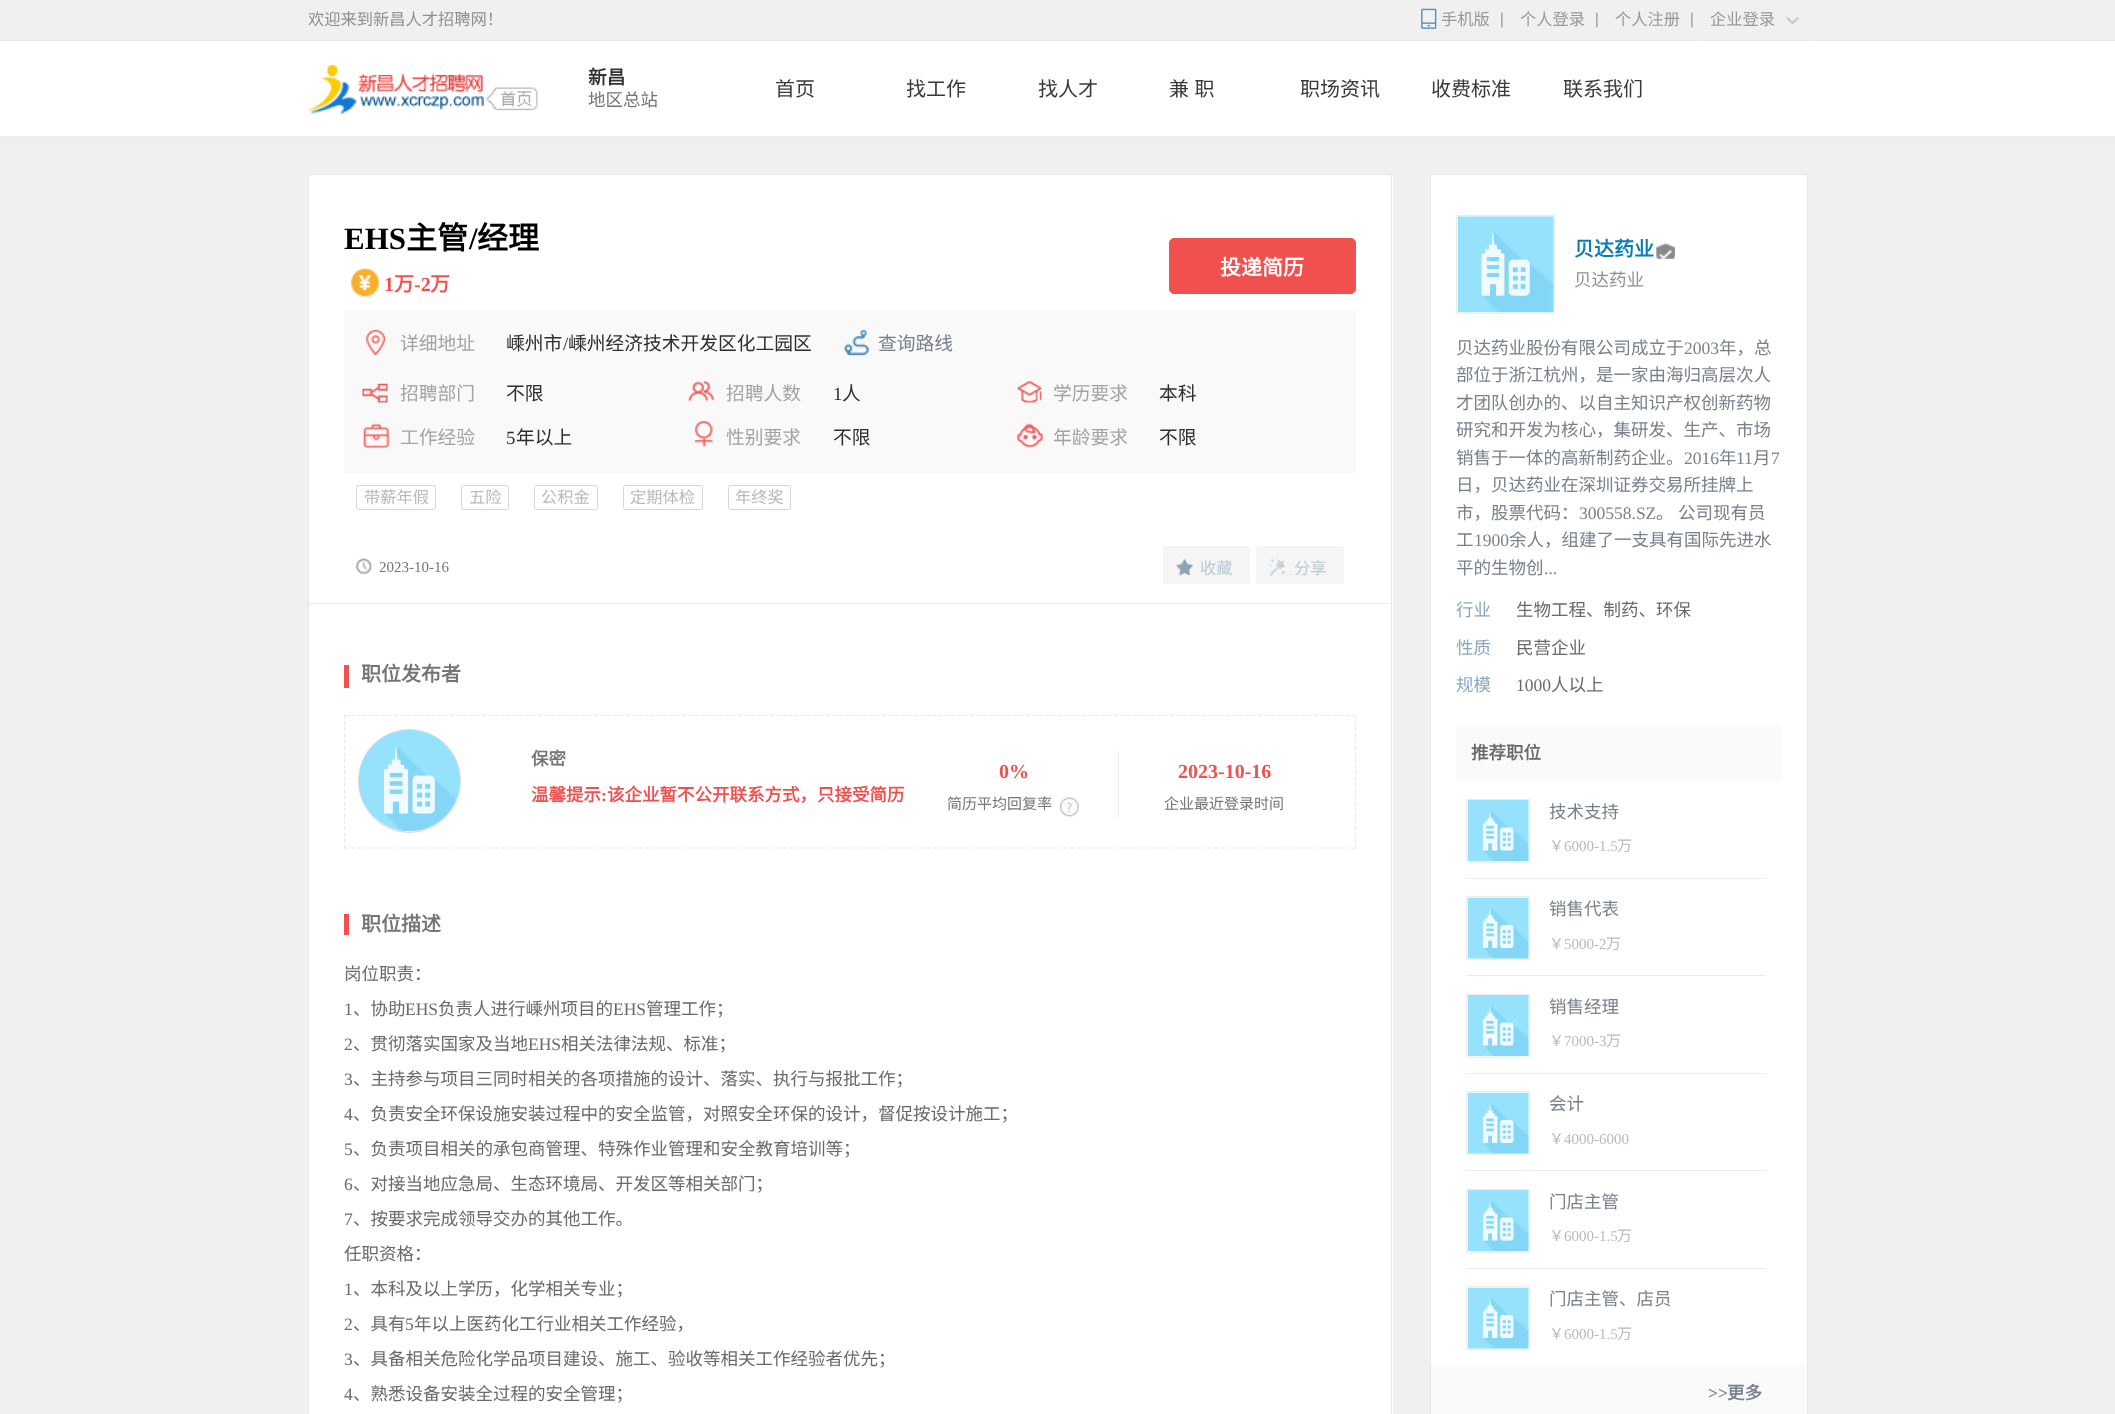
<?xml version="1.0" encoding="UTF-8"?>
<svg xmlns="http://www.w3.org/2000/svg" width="2115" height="1414">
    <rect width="100%" height="100%" fill="#FFFFFF"/>
    <rect x="0" y="0" width="2115" height="40" fill="#F0F0F0"/>
    <rect x="0" y="40" width="2115" height="1" fill="#E6E6E6"/>
    <text x="308" y="25" font-family="Noto Sans CJK SC" font-size="16.25" fill="#909090">欢迎来到新昌人才招聘网！</text>
    <image x="1501" y="12" width="2" height="16" href="img_01.png"/>
    <image x="1421" y="8" width="16" height="21" href="img_02.png"/>
    <text x="1441" y="25" font-family="Noto Sans CJK SC" font-size="16.25" fill="#999999">手机版</text>
    <image x="1596" y="12" width="2" height="16" href="img_01.png"/>
    <text x="1520" y="25" font-family="Noto Sans CJK SC" font-size="16.25" fill="#999999">个人登录</text>
    <image x="1691" y="12" width="2" height="16" href="img_01.png"/>
    <text x="1615" y="25" font-family="Noto Sans CJK SC" font-size="16.25" fill="#999999">个人注册</text>
    <rect x="1810" y="40" width="3" height="1" fill="#F0F0F0"/>
    <rect x="1695" y="40" width="3" height="1" fill="#F0F0F0"/>
    <text x="1710" y="25" font-family="Noto Sans CJK SC" font-size="16.25" fill="#999999">企业登录</text>
    <image x="1786" y="17" width="13" height="7" href="img_03.png"/>
    <image x="307" y="64" width="231" height="50" href="img_04.png"/>
    <text x="588" y="84" font-family="Noto Sans CJK SC" font-size="18.75" font-weight="700" fill="#333333">新昌</text>
    <text x="588" y="106" font-family="Noto Sans CJK SC" font-size="17.5" fill="#747474">地区总站</text>
    <text x="775" y="96" font-family="Noto Sans CJK SC" font-size="20" fill="#393939">首页</text>
    <text x="906" y="96" font-family="Noto Sans CJK SC" font-size="20" fill="#393939">找工作</text>
    <text x="1038" y="96" font-family="Noto Sans CJK SC" font-size="20" fill="#393939">找人才</text>
    <text x="1169" y="96" word-spacing="1" font-family="Noto Sans CJK SC" font-size="20" fill="#393939">兼 职</text>
    <text x="1300" y="96" font-family="Noto Sans CJK SC" font-size="20" fill="#393939">职场资讯</text>
    <text x="1431" y="96" font-family="Noto Sans CJK SC" font-size="20" fill="#393939">收费标准</text>
    <text x="1563" y="96" font-family="Noto Sans CJK SC" font-size="20" fill="#393939">联系我们</text>
    <rect x="0" y="149" width="2115" height="1265" fill="#F0F0F0"/>
    <rect x="0" y="136" width="2115" height="13" fill="#EEEEEE"/>
    <rect x="309" y="175" width="1084" height="1239" fill="#FFFFFF"/>
    <rect x="308" y="174" width="1085" height="1" fill="#E8E8E8"/>
    <rect x="1391" y="174" width="1" height="1240" fill="#E8E8E8"/>
    <rect x="308" y="174" width="1" height="1240" fill="#E8E8E8"/>
    <rect x="309" y="603" width="1082" height="1" fill="#EDEDED"/>
    <text x="344" y="249" font-family="Liberation Serif" font-size="31" font-weight="700" fill="#000000">EHS</text>
    <text x="406" y="249" font-family="Noto Sans CJK SC" font-size="31" font-weight="700" fill="#000000">主管</text>
    <text x="469" y="249" font-family="Liberation Serif" font-size="31" font-weight="700" fill="#000000">/</text>
    <text x="477" y="249" font-family="Noto Sans CJK SC" font-size="31" font-weight="700" fill="#000000">经理</text>
    <image x="351" y="268" width="28" height="29" href="img_05.png"/>
    <text x="384" y="291" font-family="Liberation Serif" font-size="20" font-weight="700" fill="#F0514E">1</text>
    <text x="394" y="291" font-family="Noto Sans CJK SC" font-size="20" font-weight="700" fill="#F0514E">万</text>
    <text x="414" y="291" font-family="Liberation Serif" font-size="20" font-weight="700" fill="#F0514E">-2</text>
    <text x="430" y="291" font-family="Noto Sans CJK SC" font-size="20" font-weight="700" fill="#F0514E">万</text>
    <rect x="1169.5" y="238.5" width="186" height="55" rx="4.5" fill="#F0514E" stroke="#F0514E"/>
    <text x="1220" y="275" font-family="Noto Sans CJK SC" font-size="21" font-weight="700" fill="#FFFFFF">投递简历</text>
    <rect x="344" y="310" width="1012" height="163" fill="#F9F9F9"/>
    <image x="366" y="329" width="20" height="27" href="img_06.png"/>
    <text x="400" y="350" font-family="Noto Sans CJK SC" font-size="18.75" fill="#A3A3A3">详细地址</text>
    <text x="506" y="350" font-family="Noto Sans CJK SC" font-size="18.75" fill="#2D2D2D">嵊州市</text>
    <text x="563" y="350" font-family="Liberation Serif" font-size="18.75" fill="#2D2D2D">/</text>
    <text x="568" y="350" font-family="Noto Sans CJK SC" font-size="18.75" fill="#2D2D2D">嵊州经济技术开发区化工园区</text>
    <image x="843" y="329" width="26" height="27" href="img_07.png"/>
    <text x="878" y="350" font-family="Noto Sans CJK SC" font-size="18.75" fill="#78808C">查询路线</text>
    <image x="362" y="383" width="26" height="20" href="img_08.png"/>
    <text x="400" y="400" font-family="Noto Sans CJK SC" font-size="18.75" fill="#A3A3A3">招聘部门</text>
    <text x="506" y="400" font-family="Noto Sans CJK SC" font-size="18.75" fill="#2D2D2D">不限</text>
    <image x="688" y="381" width="26" height="21" href="img_09.png"/>
    <text x="726" y="400" font-family="Noto Sans CJK SC" font-size="18.75" fill="#A3A3A3">招聘人数</text>
    <text x="833" y="400" font-family="Liberation Serif" font-size="18.75" fill="#2D2D2D">1</text>
    <text x="842" y="400" font-family="Noto Sans CJK SC" font-size="18.75" fill="#2D2D2D">人</text>
    <image x="1017" y="381" width="25" height="22" href="img_10.png"/>
    <text x="1053" y="400" font-family="Noto Sans CJK SC" font-size="18.75" fill="#A3A3A3">学历要求</text>
    <text x="1159" y="400" font-family="Noto Sans CJK SC" font-size="18.75" fill="#2D2D2D">本科</text>
    <image x="363" y="423" width="26" height="25" href="img_11.png"/>
    <text x="400" y="444" font-family="Noto Sans CJK SC" font-size="18.75" fill="#A3A3A3">工作经验</text>
    <text x="506" y="444" font-family="Liberation Serif" font-size="18.75" fill="#2D2D2D">5</text>
    <text x="516" y="444" font-family="Noto Sans CJK SC" font-size="18.75" fill="#2D2D2D">年以上</text>
    <image x="694" y="420" width="19" height="27" href="img_12.png"/>
    <text x="726" y="444" font-family="Noto Sans CJK SC" font-size="18.75" fill="#A3A3A3">性别要求</text>
    <text x="833" y="444" font-family="Noto Sans CJK SC" font-size="18.75" fill="#2D2D2D">不限</text>
    <image x="1016" y="423" width="28" height="25" href="img_13.png"/>
    <text x="1053" y="444" font-family="Noto Sans CJK SC" font-size="18.75" fill="#A3A3A3">年龄要求</text>
    <text x="1159" y="444" font-family="Noto Sans CJK SC" font-size="18.75" fill="#2D2D2D">不限</text>
    <rect x="356.5" y="485.5" width="79" height="24" rx="2" fill="none" stroke="#D6D6D6"/>
    <text x="364" y="503" font-family="Noto Sans CJK SC" font-size="16.25" fill="#B9B9B9">带薪年假</text>
    <rect x="461.5" y="485.5" width="47" height="24" rx="2" fill="none" stroke="#D6D6D6"/>
    <text x="469" y="503" font-family="Noto Sans CJK SC" font-size="16.25" fill="#B9B9B9">五险</text>
    <rect x="534.5" y="485.5" width="63" height="24" rx="2" fill="none" stroke="#D6D6D6"/>
    <text x="541" y="503" font-family="Noto Sans CJK SC" font-size="16.25" fill="#B9B9B9">公积金</text>
    <rect x="623.5" y="485.5" width="79" height="24" rx="2" fill="none" stroke="#D6D6D6"/>
    <text x="630" y="503" font-family="Noto Sans CJK SC" font-size="16.25" fill="#B9B9B9">定期体检</text>
    <rect x="728.5" y="485.5" width="62" height="24" rx="2" fill="none" stroke="#D6D6D6"/>
    <text x="735" y="503" font-family="Noto Sans CJK SC" font-size="16.25" fill="#B9B9B9">年终奖</text>
    <image x="356" y="558" width="16" height="16" href="img_14.png"/>
    <text x="379" y="572" font-family="Liberation Serif" font-size="15" fill="#747474">2023-10-16</text>
    <rect x="1163" y="546" width="87" height="38" rx="2.5" fill="#F5F5F5"/>
    <image x="1176" y="558" width="18" height="19" href="img_15.png"/>
    <text x="1200" y="574" font-family="Noto Sans CJK SC" font-size="16.25" fill="#B9CAD4">收藏</text>
    <rect x="1256" y="546" width="88" height="38" rx="2.5" fill="#F5F5F5"/>
    <image x="1270" y="558" width="16" height="19" href="img_16.png"/>
    <text x="1294" y="574" font-family="Noto Sans CJK SC" font-size="16.25" fill="#B9CAD4">分享</text>
    <rect x="344" y="665" width="5" height="23" fill="#F2504E"/>
    <text x="361" y="681" font-family="Noto Sans CJK SC" font-size="20" font-weight="700" fill="#747474">职位发布者</text>
    <path d="M 344 715.5 H 1356" fill="none" stroke="#E8E8E8" stroke-width="1.2" stroke-dasharray="3.75 2.51"/>
    <path d="M 1355.5 715 V 849" fill="none" stroke="#E8E8E8" stroke-width="1.2" stroke-dasharray="3.75 2.44"/>
    <path d="M 344 848 H 1356" fill="none" stroke="#E8E8E8" stroke-width="1.2" stroke-dasharray="3.75 2.51"/>
    <path d="M 344.5 715 V 849" fill="none" stroke="#E8E8E8" stroke-width="1.2" stroke-dasharray="3.75 2.44"/>
    <rect x="358.5" y="729.5" width="102" height="103" rx="51" fill="none" stroke="#D6D6D6"/>
    <image x="358" y="730" width="102" height="102" href="img_17.png"/>
    <text x="531" y="765" font-family="Noto Sans CJK SC" font-size="17.5" font-weight="700" fill="#747474">保密</text>
    <text x="531" y="801" font-family="Noto Sans CJK SC" font-size="17.5" font-weight="700" fill="#F0514E">温馨提示</text>
    <text x="601" y="801" font-family="Liberation Serif" font-size="17.5" font-weight="700" fill="#F0514E">:</text>
    <text x="607" y="801" font-family="Noto Sans CJK SC" font-size="17.5" font-weight="700" fill="#F0514E">该企业暂不公开联系方式，只接受简历</text>
    <rect x="1118" y="751" width="1" height="67" fill="#EDEDED"/>
    <text x="999" y="778" font-family="Liberation Serif" font-size="20" font-weight="700" fill="#F0514E">0%</text>
    <text x="947" y="809" font-family="Noto Sans CJK SC" font-size="15" fill="#747474">简历平均回复率</text>
    <image x="1059" y="797" width="20" height="20" href="img_18.png"/>
    <text x="1178" y="778" font-family="Liberation Serif" font-size="20" font-weight="700" fill="#F0514E">2023-10-16</text>
    <text x="1164" y="809" font-family="Noto Sans CJK SC" font-size="15" fill="#747474">企业最近登录时间</text>
    <rect x="344" y="914" width="5" height="21" fill="#F2504E"/>
    <text x="361" y="931" font-family="Noto Sans CJK SC" font-size="20" font-weight="700" fill="#747474">职位描述</text>
    <text x="344" y="980" font-family="Noto Sans CJK SC" font-size="17.5" fill="#696969">岗位职责：</text>
    <text x="344" y="1015" font-family="Liberation Serif" font-size="17.5" fill="#696969">1</text>
    <text x="353" y="1015" font-family="Noto Sans CJK SC" font-size="17.5" fill="#696969">、协助</text>
    <text x="405" y="1015" font-family="Liberation Serif" font-size="17.5" fill="#696969">EHS</text>
    <text x="438" y="1015" font-family="Noto Sans CJK SC" font-size="17.5" fill="#696969">负责人进行嵊州项目的</text>
    <text x="613" y="1015" font-family="Liberation Serif" font-size="17.5" fill="#696969">EHS</text>
    <text x="646" y="1015" font-family="Noto Sans CJK SC" font-size="17.5" fill="#696969">管理工作；</text>
    <text x="344" y="1050" font-family="Liberation Serif" font-size="17.5" fill="#696969">2</text>
    <text x="353" y="1050" font-family="Noto Sans CJK SC" font-size="17.5" fill="#696969">、贯彻落实国家及当地</text>
    <text x="528" y="1050" font-family="Liberation Serif" font-size="17.5" fill="#696969">EHS</text>
    <text x="561" y="1050" font-family="Noto Sans CJK SC" font-size="17.5" fill="#696969">相关法律法规、标准；</text>
    <text x="344" y="1085" font-family="Liberation Serif" font-size="17.5" fill="#696969">3</text>
    <text x="353" y="1085" font-family="Noto Sans CJK SC" font-size="17.5" fill="#696969">、主持参与项目三同时相关的各项措施的设计、落实、执行与报批工作；</text>
    <text x="344" y="1120" font-family="Liberation Serif" font-size="17.5" fill="#696969">4</text>
    <text x="353" y="1120" font-family="Noto Sans CJK SC" font-size="17.5" fill="#696969">、负责安全环保设施安装过程中的安全监管，对照安全环保的设计，督促按设计施工；</text>
    <text x="344" y="1155" font-family="Liberation Serif" font-size="17.5" fill="#696969">5</text>
    <text x="353" y="1155" font-family="Noto Sans CJK SC" font-size="17.5" fill="#696969">、负责项目相关的承包商管理、特殊作业管理和安全教育培训等；</text>
    <text x="344" y="1190" font-family="Liberation Serif" font-size="17.5" fill="#696969">6</text>
    <text x="353" y="1190" font-family="Noto Sans CJK SC" font-size="17.5" fill="#696969">、对接当地应急局、生态环境局、开发区等相关部门；</text>
    <text x="344" y="1225" font-family="Liberation Serif" font-size="17.5" fill="#696969">7</text>
    <text x="353" y="1225" font-family="Noto Sans CJK SC" font-size="17.5" fill="#696969">、按要求完成领导交办的其他工作。</text>
    <text x="344" y="1260" font-family="Noto Sans CJK SC" font-size="17.5" fill="#696969">任职资格：</text>
    <text x="344" y="1295" font-family="Liberation Serif" font-size="17.5" fill="#696969">1</text>
    <text x="353" y="1295" font-family="Noto Sans CJK SC" font-size="17.5" fill="#696969">、本科及以上学历，化学相关专业；</text>
    <text x="344" y="1330" font-family="Liberation Serif" font-size="17.5" fill="#696969">2</text>
    <text x="353" y="1330" font-family="Noto Sans CJK SC" font-size="17.5" fill="#696969">、具有</text>
    <text x="405" y="1330" font-family="Liberation Serif" font-size="17.5" fill="#696969">5</text>
    <text x="414" y="1330" font-family="Noto Sans CJK SC" font-size="17.5" fill="#696969">年以上医药化工行业相关工作经验，</text>
    <text x="344" y="1365" font-family="Liberation Serif" font-size="17.5" fill="#696969">3</text>
    <text x="353" y="1365" font-family="Noto Sans CJK SC" font-size="17.5" fill="#696969">、具备相关危险化学品项目建设、施工、验收等相关工作经验者优先；</text>
    <text x="344" y="1400" font-family="Liberation Serif" font-size="17.5" fill="#696969">4</text>
    <text x="353" y="1400" font-family="Noto Sans CJK SC" font-size="17.5" fill="#696969">、熟悉设备安装全过程的安全管理；</text>
    <rect x="1430.5" y="174.5" width="377" height="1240" fill="#FFFFFF" stroke="#E8E8E8"/>
    <rect x="1456.5" y="215.5" width="98" height="98" fill="none" stroke="#EDEDED"/>
    <image x="1457" y="216" width="97" height="97" href="img_19.png"/>
    <text x="1574" y="256" font-family="Noto Sans CJK SC" font-size="20" font-weight="700" fill="#0B7CB8">贝达药业</text>
    <image x="1656" y="243" width="19" height="16" href="img_20.png"/>
    <text x="1574" y="286" font-family="Noto Sans CJK SC" font-size="17.5" fill="#909090">贝达药业</text>
    <text x="1456" y="354" font-family="Noto Sans CJK SC" font-size="17.5" fill="#78808C">贝达药业股份有限公司成立于</text>
    <text x="1684" y="354" font-family="Liberation Serif" font-size="17.5" fill="#78808C">2003</text>
    <text x="1719" y="354" font-family="Noto Sans CJK SC" font-size="17.5" fill="#78808C">年，总</text>
    <text font-family="Noto Sans CJK SC" font-size="17.5" fill="#78808C">
        <tspan x="1456" y="381">部位于浙江杭州，是一家由海归高层次人</tspan>
        <tspan x="1456" y="409">才团队创办的、以自主知识产权创新药物</tspan>
        <tspan x="1456" y="436">研究和开发为核心，集研发、生产、市场</tspan>
        <tspan x="1456" y="464">销售于一体的高新制药企业。</tspan>
    </text>
    <text x="1684" y="464" font-family="Liberation Serif" font-size="17.5" fill="#78808C">2016</text>
    <text x="1719" y="464" font-family="Noto Sans CJK SC" font-size="17.5" fill="#78808C">年</text>
    <text x="1736" y="464" font-family="Liberation Serif" font-size="17.5" fill="#78808C">11</text>
    <text x="1753" y="464" font-family="Noto Sans CJK SC" font-size="17.5" fill="#78808C">月</text>
    <text x="1771" y="464" font-family="Liberation Serif" font-size="17.5" fill="#78808C">7</text>
    <text font-family="Noto Sans CJK SC" font-size="17.5" fill="#78808C">
        <tspan x="1456" y="491">日，贝达药业在深圳证券交易所挂牌上</tspan>
        <tspan x="1456" y="519">市，股票代码：</tspan>
    </text>
    <text x="1579" y="519" font-family="Liberation Serif" font-size="17.5" fill="#78808C">300558.SZ</text>
    <text x="1656" y="519" font-family="Noto Sans CJK SC" font-size="17.5" fill="#78808C">。</text>
    <text x="1678" y="519" font-family="Noto Sans CJK SC" font-size="17.5" fill="#78808C">公司现有员</text>
    <text x="1456" y="546" font-family="Noto Sans CJK SC" font-size="17.5" fill="#78808C">工</text>
    <text x="1474" y="546" font-family="Liberation Serif" font-size="17.5" fill="#78808C">1900</text>
    <text x="1509" y="546" font-family="Noto Sans CJK SC" font-size="17.5" fill="#78808C">余人，组建了一支具有国际先进水</text>
    <text x="1456" y="574" font-family="Noto Sans CJK SC" font-size="17.5" fill="#78808C">平的生物创</text>
    <text x="1544" y="574" font-family="Liberation Serif" font-size="17.5" fill="#78808C">...</text>
    <text x="1456" y="616" font-family="Noto Sans CJK SC" font-size="17.5" fill="#89A8BD">行业</text>
    <text x="1516" y="616" font-family="Noto Sans CJK SC" font-size="17.5" fill="#696969">生物工程、制药、环保</text>
    <text x="1456" y="654" font-family="Noto Sans CJK SC" font-size="17.5" fill="#89A8BD">性质</text>
    <text x="1516" y="654" font-family="Noto Sans CJK SC" font-size="17.5" fill="#696969">民营企业</text>
    <text x="1456" y="691" font-family="Noto Sans CJK SC" font-size="17.5" fill="#89A8BD">规模</text>
    <text x="1516" y="691" font-family="Liberation Serif" font-size="17.5" fill="#696969">1000</text>
    <text x="1551" y="691" font-family="Noto Sans CJK SC" font-size="17.5" fill="#696969">人以上</text>
    <rect x="1456" y="725" width="325" height="56" fill="#FAFAFA"/>
    <text x="1471" y="759" font-family="Noto Sans CJK SC" font-size="17.5" font-weight="700" fill="#696969">推荐职位</text>
    <rect x="1466" y="878" width="300" height="1" fill="#EDEDED"/>
    <rect x="1466.5" y="799.5" width="63" height="63" fill="none" stroke="#EDEDED"/>
    <image x="1467" y="800" width="62" height="62" href="img_21.png"/>
    <text x="1549" y="818" font-family="Noto Sans CJK SC" font-size="17.5" fill="#78808C">技术支持</text>
    <text x="1549" y="851" font-family="Noto Sans CJK SC" font-size="15" fill="#B9B9B9">￥</text>
    <text x="1564" y="851" font-family="Liberation Serif" font-size="15" fill="#B9B9B9">6000-1.5</text>
    <text x="1617" y="851" font-family="Noto Sans CJK SC" font-size="15" fill="#B9B9B9">万</text>
    <rect x="1466" y="975" width="300" height="1" fill="#EDEDED"/>
    <rect x="1466.5" y="896.5" width="63" height="63" fill="none" stroke="#EDEDED"/>
    <image x="1467" y="897" width="62" height="62" href="img_22.png"/>
    <text x="1549" y="915" font-family="Noto Sans CJK SC" font-size="17.5" fill="#78808C">销售代表</text>
    <text x="1549" y="949" font-family="Noto Sans CJK SC" font-size="15" fill="#B9B9B9">￥</text>
    <text x="1564" y="949" font-family="Liberation Serif" font-size="15" fill="#B9B9B9">5000-2</text>
    <text x="1606" y="949" font-family="Noto Sans CJK SC" font-size="15" fill="#B9B9B9">万</text>
    <rect x="1466" y="1073" width="300" height="1" fill="#EDEDED"/>
    <rect x="1466.5" y="994.5" width="63" height="63" fill="none" stroke="#EDEDED"/>
    <image x="1467" y="995" width="62" height="62" href="img_21.png"/>
    <text x="1549" y="1013" font-family="Noto Sans CJK SC" font-size="17.5" fill="#78808C">销售经理</text>
    <text x="1549" y="1046" font-family="Noto Sans CJK SC" font-size="15" fill="#B9B9B9">￥</text>
    <text x="1564" y="1046" font-family="Liberation Serif" font-size="15" fill="#B9B9B9">7000-3</text>
    <text x="1606" y="1046" font-family="Noto Sans CJK SC" font-size="15" fill="#B9B9B9">万</text>
    <rect x="1466" y="1170" width="300" height="1" fill="#EDEDED"/>
    <rect x="1466.5" y="1091.5" width="63" height="63" fill="none" stroke="#EDEDED"/>
    <image x="1467" y="1092" width="62" height="62" href="img_22.png"/>
    <text x="1549" y="1110" font-family="Noto Sans CJK SC" font-size="17.5" fill="#78808C">会计</text>
    <text x="1549" y="1144" font-family="Noto Sans CJK SC" font-size="15" fill="#B9B9B9">￥</text>
    <text x="1564" y="1144" font-family="Liberation Serif" font-size="15" fill="#B9B9B9">4000-6000</text>
    <rect x="1466" y="1268" width="300" height="1" fill="#EDEDED"/>
    <rect x="1466.5" y="1189.5" width="63" height="63" fill="none" stroke="#EDEDED"/>
    <image x="1467" y="1190" width="62" height="62" href="img_23.png"/>
    <text x="1549" y="1208" font-family="Noto Sans CJK SC" font-size="17.5" fill="#78808C">门店主管</text>
    <text x="1549" y="1241" font-family="Noto Sans CJK SC" font-size="15" fill="#B9B9B9">￥</text>
    <text x="1564" y="1241" font-family="Liberation Serif" font-size="15" fill="#B9B9B9">6000-1.5</text>
    <text x="1617" y="1241" font-family="Noto Sans CJK SC" font-size="15" fill="#B9B9B9">万</text>
    <rect x="1466.5" y="1286.5" width="63" height="63" fill="none" stroke="#EDEDED"/>
    <image x="1467" y="1287" width="62" height="62" href="img_22.png"/>
    <text x="1549" y="1305" font-family="Noto Sans CJK SC" font-size="17.5" fill="#78808C">门店主管、店员</text>
    <text x="1549" y="1339" font-family="Noto Sans CJK SC" font-size="15" fill="#B9B9B9">￥</text>
    <text x="1564" y="1339" font-family="Liberation Serif" font-size="15" fill="#B9B9B9">6000-1.5</text>
    <text x="1617" y="1339" font-family="Noto Sans CJK SC" font-size="15" fill="#B9B9B9">万</text>
    <rect x="1431" y="1365" width="375" height="49" fill="#FAFAFA"/>
    <text x="1708" y="1399" font-family="Liberation Serif" font-size="17.5" font-weight="700" fill="#78808C">&gt;&gt;</text>
    <text x="1727" y="1399" font-family="Noto Sans CJK SC" font-size="17.5" font-weight="700" fill="#78808C">更多</text>
</svg>
